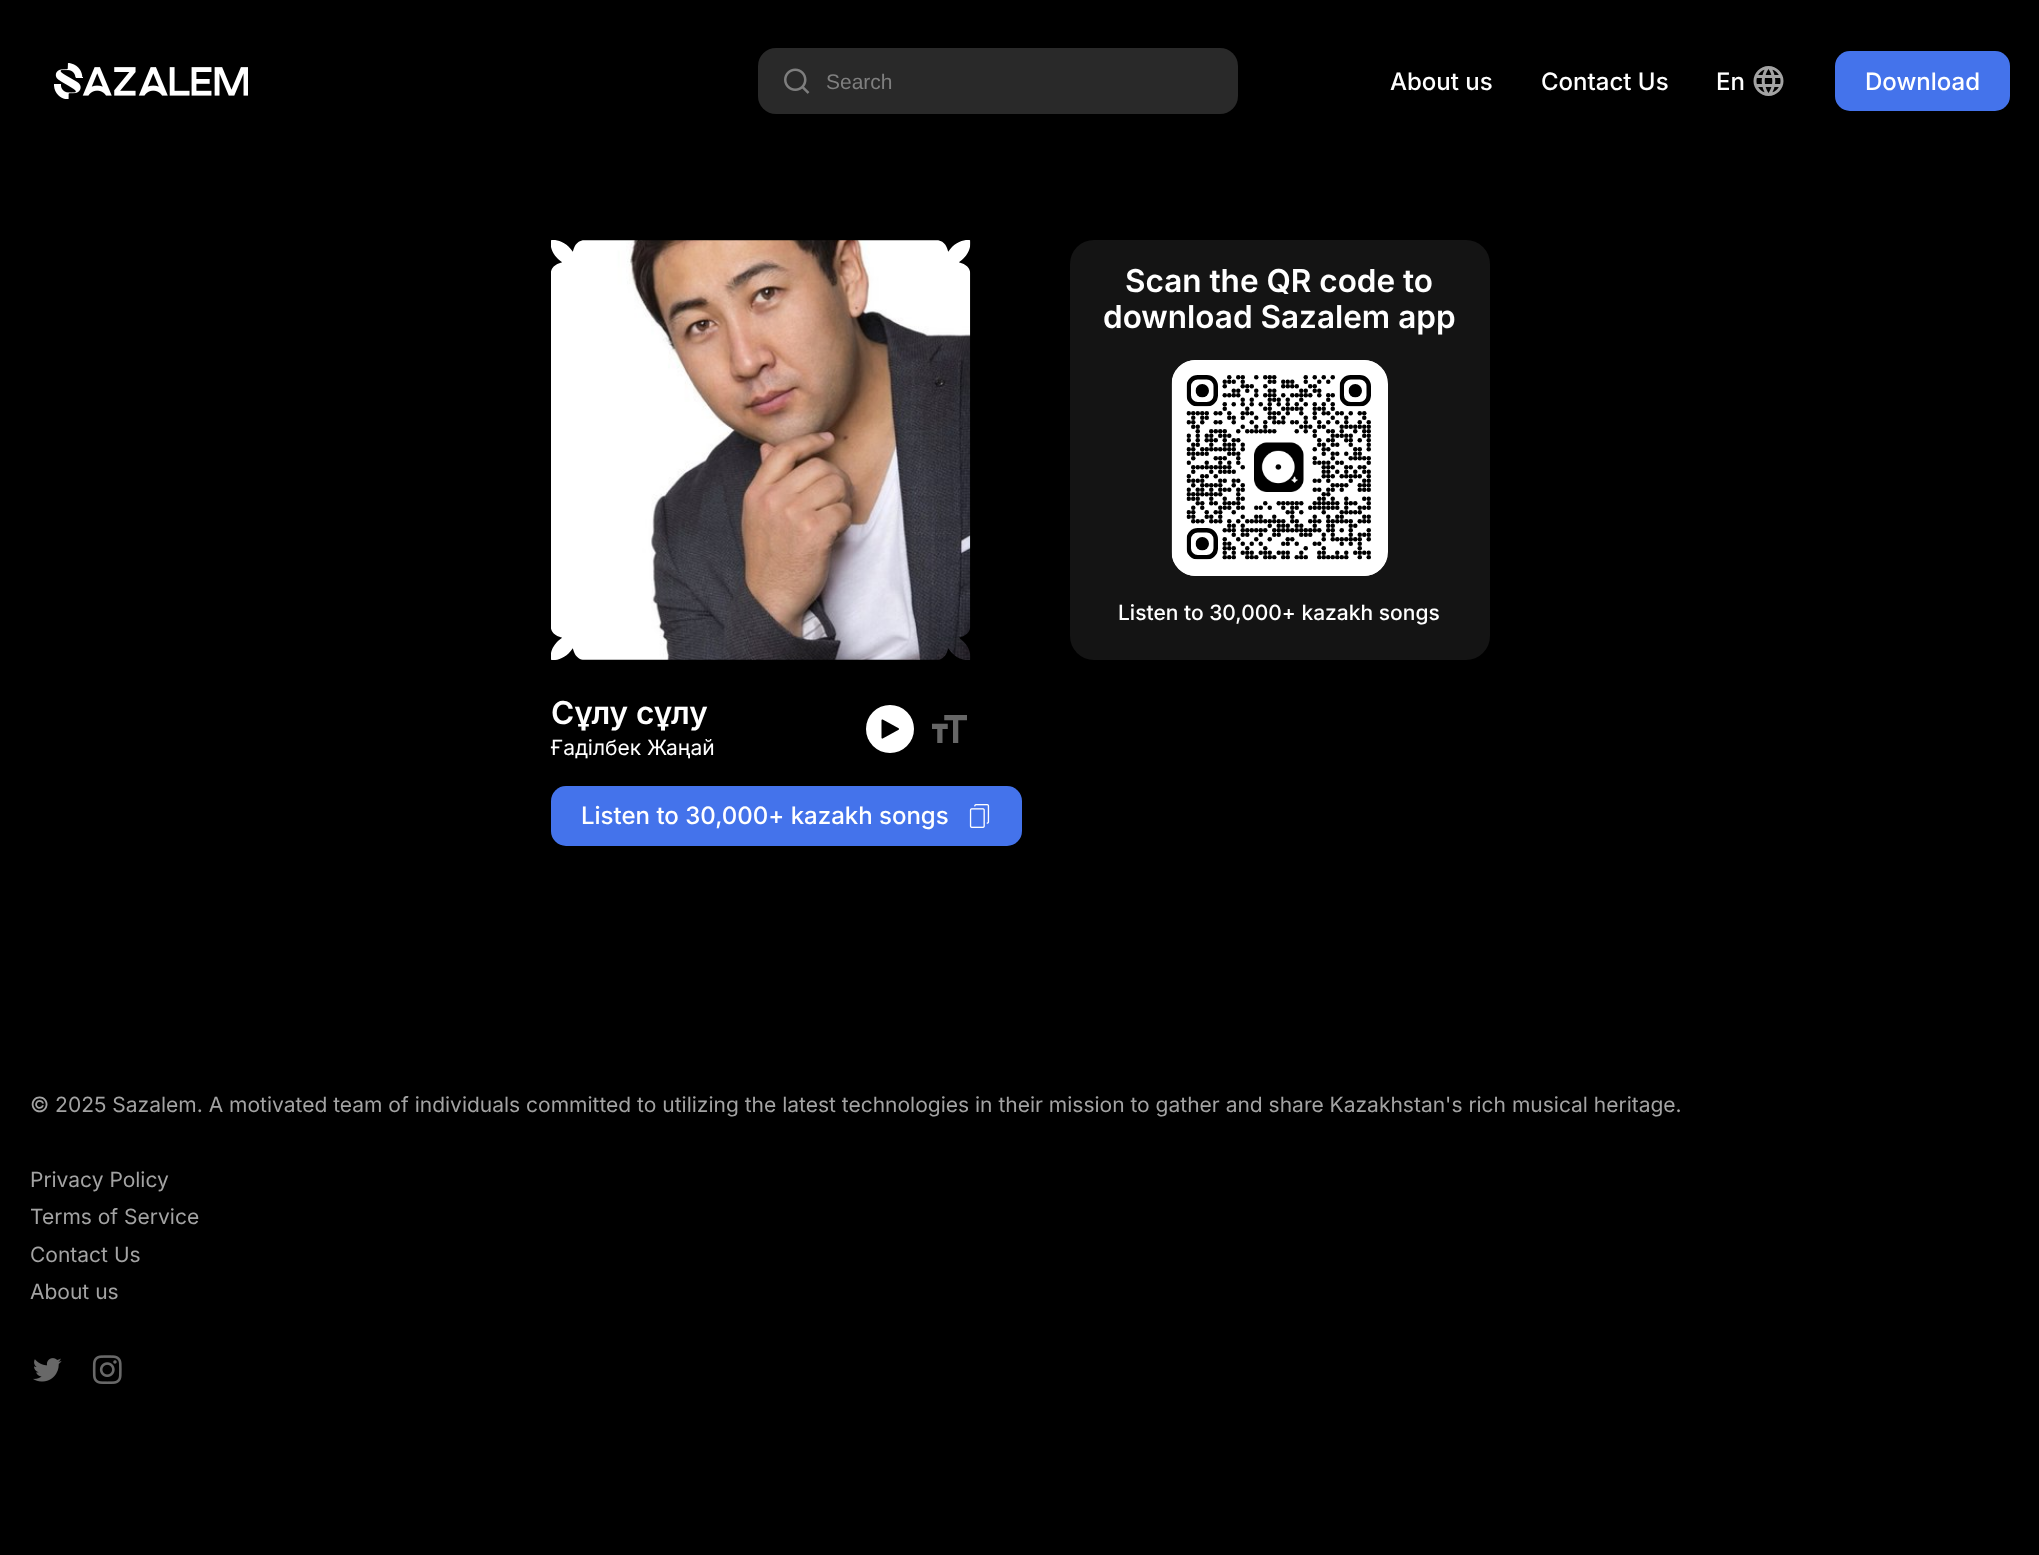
<?xml version="1.0" encoding="UTF-8"?>
<svg xmlns="http://www.w3.org/2000/svg" width="2039" height="1555">
    <rect width="100%" height="100%" fill="#000000"/>
    <image x="54" y="63" width="194" height="36" href="img_01.png"/>
    <rect x="758" y="48" width="480" height="66" rx="18" fill="#292929"/>
    <image x="784" y="68" width="26" height="26" href="img_02.png"/>
    <text x="826" y="89" font-family="Liberation Sans" font-size="21" fill="#7F7F7F">Search</text>
    <text x="1390" y="90" font-family="Inter" font-size="24" font-weight="500" fill="#FFFFFF">About us</text>
    <text x="1541" y="90" font-family="Inter" font-size="24" font-weight="500" fill="#FFFFFF">Contact Us</text>
    <text x="1716" y="90" font-family="Inter" font-size="24" font-weight="500" fill="#FFFFFF">En</text>
    <image x="1753" y="66" width="31" height="30" href="img_03.png"/>
    <rect x="1835" y="51" width="175" height="60" rx="15" fill="#4473EB"/>
    <text x="1865" y="90" font-family="Inter" font-size="24" font-weight="500" fill="#FFFFFF">Download</text>
    <rect x="1070" y="240" width="420" height="420" rx="24" fill="#141414"/>
    <text x="1125" y="292" font-family="Inter" font-size="31.5" font-weight="600" fill="#FFFFFF">Scan the QR code to</text>
    <text x="1103" y="328" font-family="Inter" font-size="31.5" font-weight="600" fill="#FFFFFF">download Sazalem app</text>
    <rect x="1172" y="360" width="216" height="216" rx="24" fill="#FFFFFF"/>
    <image x="1171" y="360" width="216" height="216" href="img_04.png"/>
    <text x="1118" y="620" font-family="Inter" font-size="21" font-weight="500" fill="#FFFFFF">Listen to 30,000+ kazakh songs</text>
    <image x="551" y="240" width="420" height="420" href="img_05.png"/>
    <text x="551" y="724" font-family="Inter" font-size="31.5" font-weight="600" fill="#FFFFFF">Сұлу сұлу</text>
    <text x="551" y="755" font-family="Inter" font-size="21" fill="#FFFFFF">Ғаділбек Жаңай</text>
    <circle cx="890" cy="729" r="24" fill="#FFFFFF"/>
    <image x="881" y="719" width="18" height="20" href="img_06.png"/>
    <image x="932" y="715" width="35" height="28" href="img_07.png"/>
    <rect x="551" y="786" width="471" height="60" rx="15" fill="#4473EB"/>
    <text x="581" y="824" font-family="Inter" font-size="24" font-weight="500" fill="#FFFFFF">Listen to 30,000+ kazakh songs</text>
    <image x="969" y="804" width="21" height="24" href="img_08.png"/>
    <text x="30" y="1112" font-family="Inter" font-size="21" fill="#A3A3A3">© 2025 Sazalem. A motivated team of individuals committed to utilizing the latest technologies in their mission to gather and share Kazakhstan's rich musical heritage.</text>
    <text font-family="Inter" font-size="21" fill="#A3A3A3">
        <tspan x="30" y="1187">Privacy Policy</tspan>
        <tspan x="30" y="1224">Terms of Service</tspan>
        <tspan x="30" y="1262">Contact Us</tspan>
        <tspan x="30" y="1299">About us</tspan>
    </text>
    <image x="33" y="1358" width="29" height="24" href="img_09.png"/>
    <image x="92" y="1355" width="30" height="29" href="img_10.png"/>
</svg>
